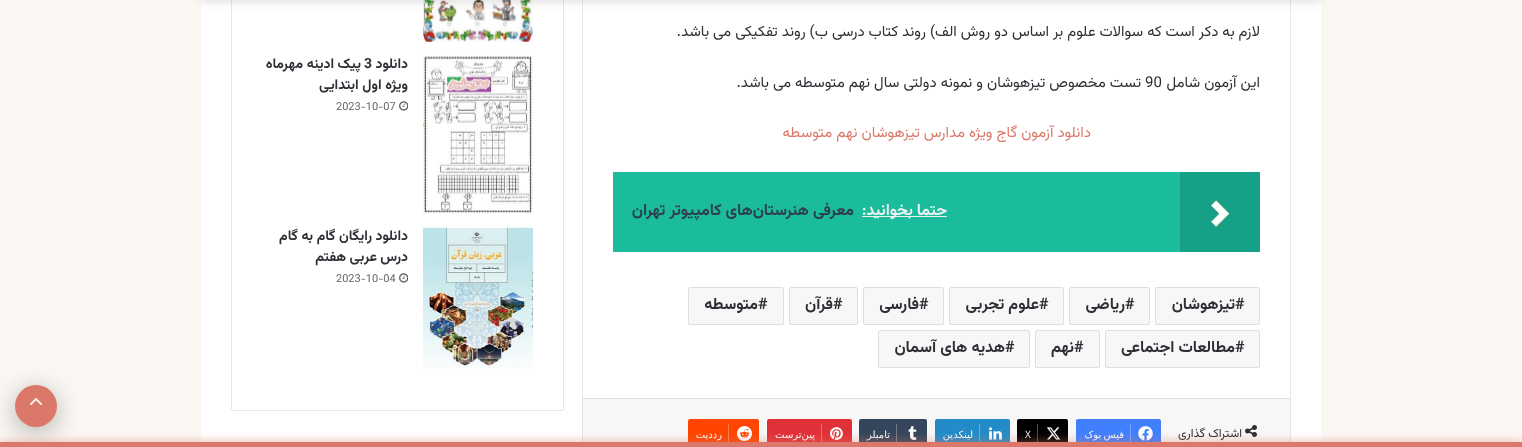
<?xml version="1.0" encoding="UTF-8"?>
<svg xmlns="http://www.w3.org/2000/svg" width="1522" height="447">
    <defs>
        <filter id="blur1" x="-50%" y="-200%" width="200%" height="500%"><feGaussianBlur stdDeviation="4"/></filter>
        <filter id="blur2" x="-50%" y="-200%" width="200%" height="500%"><feGaussianBlur stdDeviation="12.5"/></filter>
        <filter id="blur3" x="-50%" y="-200%" width="200%" height="500%"><feGaussianBlur stdDeviation="5"/></filter>
    </defs>
    <rect width="100%" height="100%" fill="#FBF8F3"/>
    <rect x="201" y="0" width="1120" height="442" fill="#FFFFFF"/>
    <rect x="582.5" y="-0.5" width="708" height="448" fill="none" stroke="#E6E6E6"/>
    <rect x="231.5" y="-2.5" width="332" height="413" rx="1.5" fill="none" stroke="#E6E6E6"/>
    <image x="423" y="0" width="110" height="42" href="img_09.png"/>
    <rect x="201" y="-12" width="1120" height="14" fill="#636363" fill-opacity="0.2" filter="url(#blur1)"/>
    <text x="1260" y="36" font-family="Vazirmatn" font-size="15" direction="rtl" fill="#2C2F34">لازم به دکر است که سوالات علوم بر اساس دو روش الف) روند کتاب درسی ب) روند تفکیکی می باشد.</text>
    <text x="1260" y="87" font-family="Vazirmatn" font-size="15" direction="rtl" fill="#2C2F34">این آزمون شامل</text>
    <text x="1145" y="87" font-family="Vazirmatn" font-size="15" fill="#2C2F34">90</text>
    <text x="1141" y="87" font-family="Vazirmatn" font-size="15" direction="rtl" fill="#2C2F34">تست مخصوص تیزهوشان و نمونه دولتی سال نهم متوسطه می باشد.</text>
    <text x="1091" y="137" font-family="Vazirmatn" font-size="15" direction="rtl" fill="#DB786A">دانلود آزمون گاج ویژه مدارس تیزهوشان نهم متوسطه</text>
    <rect x="613" y="172" width="647" height="80" fill="#1ABC9C"/>
    <rect x="1180" y="172" width="80" height="80" rx="3" fill="#16A085"/>
    <image x="1211" y="200" width="19" height="27" href="img_01.png"/>
    <rect x="862" y="216" width="85" height="1" fill="#ECF0F1"/>
    <text x="947" y="215" font-family="Vazirmatn" font-size="16" font-weight="700" direction="rtl" fill="#ECF0F1">حتما بخوانید:</text>
    <text x="854" y="215" font-family="Vazirmatn" font-size="16" font-weight="700" direction="rtl" fill="#2C3E50">معرفی هنرستان‌های کامپیوتر تهران</text>
    <rect x="1155.5" y="287.5" width="104" height="37" rx="1.5" fill="#F7F7F7" stroke="#DEDEDE"/>
    <text x="1235" y="309" font-family="Vazirmatn" font-size="16" font-weight="700" fill="#2C2F34">#</text>
    <text x="1235" y="309" font-family="Vazirmatn" font-size="16" font-weight="700" direction="rtl" fill="#2C2F34">تیزهوشان</text>
    <rect x="1069.5" y="287.5" width="80" height="37" rx="1.5" fill="#F7F7F7" stroke="#DEDEDE"/>
    <text x="1125" y="309" font-family="Vazirmatn" font-size="16" font-weight="700" fill="#2C2F34">#</text>
    <text x="1125" y="309" font-family="Vazirmatn" font-size="16" font-weight="700" direction="rtl" fill="#2C2F34">ریاضی</text>
    <rect x="949.5" y="287.5" width="114" height="37" rx="1.5" fill="#F7F7F7" stroke="#DEDEDE"/>
    <text x="1039" y="309" font-family="Vazirmatn" font-size="16" font-weight="700" fill="#2C2F34">#</text>
    <text x="1039" y="309" font-family="Vazirmatn" font-size="16" font-weight="700" direction="rtl" fill="#2C2F34">علوم تجربی</text>
    <rect x="863.5" y="287.5" width="80" height="37" rx="1.5" fill="#F7F7F7" stroke="#DEDEDE"/>
    <text x="919" y="309" font-family="Vazirmatn" font-size="16" font-weight="700" fill="#2C2F34">#</text>
    <text x="919" y="309" font-family="Vazirmatn" font-size="16" font-weight="700" direction="rtl" fill="#2C2F34">فارسی</text>
    <rect x="789.5" y="287.5" width="68" height="37" rx="1.5" fill="#F7F7F7" stroke="#DEDEDE"/>
    <text x="833" y="309" font-family="Vazirmatn" font-size="16" font-weight="700" fill="#2C2F34">#</text>
    <text x="833" y="309" font-family="Vazirmatn" font-size="16" font-weight="700" direction="rtl" fill="#2C2F34">قرآن</text>
    <rect x="688.5" y="287.5" width="95" height="37" rx="1.5" fill="#F7F7F7" stroke="#DEDEDE"/>
    <text x="758" y="309" font-family="Vazirmatn" font-size="16" font-weight="700" fill="#2C2F34">#</text>
    <text x="758" y="309" font-family="Vazirmatn" font-size="16" font-weight="700" direction="rtl" fill="#2C2F34">متوسطه</text>
    <rect x="1105.5" y="330.5" width="154" height="37" rx="1.5" fill="#F7F7F7" stroke="#DEDEDE"/>
    <text x="1235" y="352" font-family="Vazirmatn" font-size="16" font-weight="700" fill="#2C2F34">#</text>
    <text x="1235" y="352" font-family="Vazirmatn" font-size="16" font-weight="700" direction="rtl" fill="#2C2F34">مطالعات اجتماعی</text>
    <rect x="1035.5" y="330.5" width="64" height="37" rx="1.5" fill="#F7F7F7" stroke="#DEDEDE"/>
    <text x="1074" y="352" font-family="Vazirmatn" font-size="16" font-weight="700" fill="#2C2F34">#</text>
    <text x="1074" y="352" font-family="Vazirmatn" font-size="16" font-weight="700" direction="rtl" fill="#2C2F34">نهم</text>
    <rect x="878.5" y="330.5" width="151" height="37" rx="1.5" fill="#F7F7F7" stroke="#DEDEDE"/>
    <text x="1005" y="352" font-family="Vazirmatn" font-size="16" font-weight="700" fill="#2C2F34">#</text>
    <text x="1005" y="352" font-family="Vazirmatn" font-size="16" font-weight="700" direction="rtl" fill="#2C2F34">هدیه های آسمان</text>
    <rect x="583" y="399" width="707" height="43" fill="#F7F7F7"/>
    <rect x="583" y="398" width="707" height="1" fill="#DEDEDE"/>
    <image x="1245" y="425" width="12" height="12" href="img_02.png"/>
    <text x="1242" y="437" font-family="Vazirmatn" font-size="12" direction="rtl" fill="#2C2F34">اشتراک گذاری</text>
    <rect x="1076" y="419" width="85" height="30" rx="2" fill="#4080FF"/>
    <image x="1138" y="426" width="15" height="15" href="img_03.png"/>
    <rect x="1130" y="424" width="1" height="20" fill="#79A6FF"/>
    <text x="1124" y="438" word-spacing="-1" font-family="DejaVu Sans" font-size="10" direction="rtl" fill="#FFFFFF">فیس بوک</text>
    <rect x="1017" y="419" width="51" height="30" rx="2" fill="#000000"/>
    <image x="1046" y="427" width="15" height="13" href="img_04.png"/>
    <rect x="1037" y="424" width="1" height="20" fill="#4D4D4D"/>
    <text x="1025" y="438" font-family="Open Sans" font-size="10" fill="#FFFFFF">X</text>
    <rect x="935" y="419" width="75" height="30" rx="2" fill="#238CC8"/>
    <image x="989" y="427" width="13" height="13" href="img_05.png"/>
    <rect x="979" y="424" width="1" height="20" fill="#65AFD9"/>
    <text x="973" y="438" font-family="DejaVu Sans" font-size="10" direction="rtl" fill="#FFFFFF">لینکدین</text>
    <rect x="859" y="419" width="68" height="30" rx="2" fill="#35465C"/>
    <image x="908" y="426" width="9" height="14" href="img_06.png"/>
    <rect x="896" y="424" width="1" height="20" fill="#727E8D"/>
    <text x="890" y="438" font-family="DejaVu Sans" font-size="10" direction="rtl" fill="#FFFFFF">تامبلر</text>
    <rect x="767" y="419" width="85" height="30" rx="2" fill="#E13138"/>
    <image x="830" y="427" width="13" height="13" href="img_07.png"/>
    <rect x="821" y="424" width="1" height="20" fill="#EA6F74"/>
    <text x="815" y="438" font-family="DejaVu Sans" font-size="10" direction="rtl" fill="#FFFFFF">پین‌ترست</text>
    <rect x="688" y="419" width="71" height="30" rx="2" fill="#FF4500"/>
    <image x="737" y="426" width="15" height="16" href="img_08.png"/>
    <rect x="728" y="424" width="1" height="20" fill="#FF7D4D"/>
    <text x="722" y="438" font-family="DejaVu Sans" font-size="10" direction="rtl" fill="#FFFFFF">رددیت</text>
    <image x="423" y="55" width="110" height="159" href="img_10.png"/>
    <text x="408" y="68" font-family="Vazirmatn" font-size="14" font-weight="700" direction="rtl" fill="#2C2F34">دانلود</text>
    <text x="364" y="68" font-family="Vazirmatn" font-size="14" font-weight="700" fill="#2C2F34">3</text>
    <text x="361" y="68" font-family="Vazirmatn" font-size="14" font-weight="700" direction="rtl" fill="#2C2F34">پیک ادینه</text>
    <text x="303" y="68" font-family="Vazirmatn" font-size="14" font-weight="700" direction="rtl" fill="#2C2F34">مهرماه</text>
    <text x="408" y="89" font-family="Vazirmatn" font-size="14" font-weight="700" direction="rtl" fill="#2C2F34">ویژه اول ابتدایی</text>
    <image x="399" y="101" width="9" height="10" href="img_11.png"/>
    <text x="336" y="110" font-family="Vazirmatn" font-size="11" fill="#666666">2023-10-07</text>
    <image x="423" y="227" width="111" height="143" href="img_12.png"/>
    <text font-family="Vazirmatn" font-size="14" font-weight="700" direction="rtl" fill="#2C2F34">
        <tspan x="408" y="240">دانلود رایگان گام به گام</tspan>
        <tspan x="408" y="261">درس</tspan>
    </text>
    <text x="377" y="261" font-family="Vazirmatn" font-size="14" font-weight="700" direction="rtl" fill="#2C2F34">عربی هفتم</text>
    <image x="399" y="273" width="9" height="10" href="img_11.png"/>
    <text x="336" y="282" font-family="Vazirmatn" font-size="11" fill="#666666">2023-10-04</text>
    <rect x="15" y="390" width="42" height="42" rx="21" fill="#000000" fill-opacity="0.3" filter="url(#blur2)"/>
    <circle cx="36" cy="406" r="21" fill="#DB786A"/>
    <image x="30" y="398" width="13" height="8" href="img_13.png"/>
    <rect x="0" y="442" width="1522" height="5" fill="#DB786A" fill-opacity="0.7" filter="url(#blur3)"/>
    <rect x="0" y="442" width="1522" height="5" fill="#DB786A"/>
</svg>
